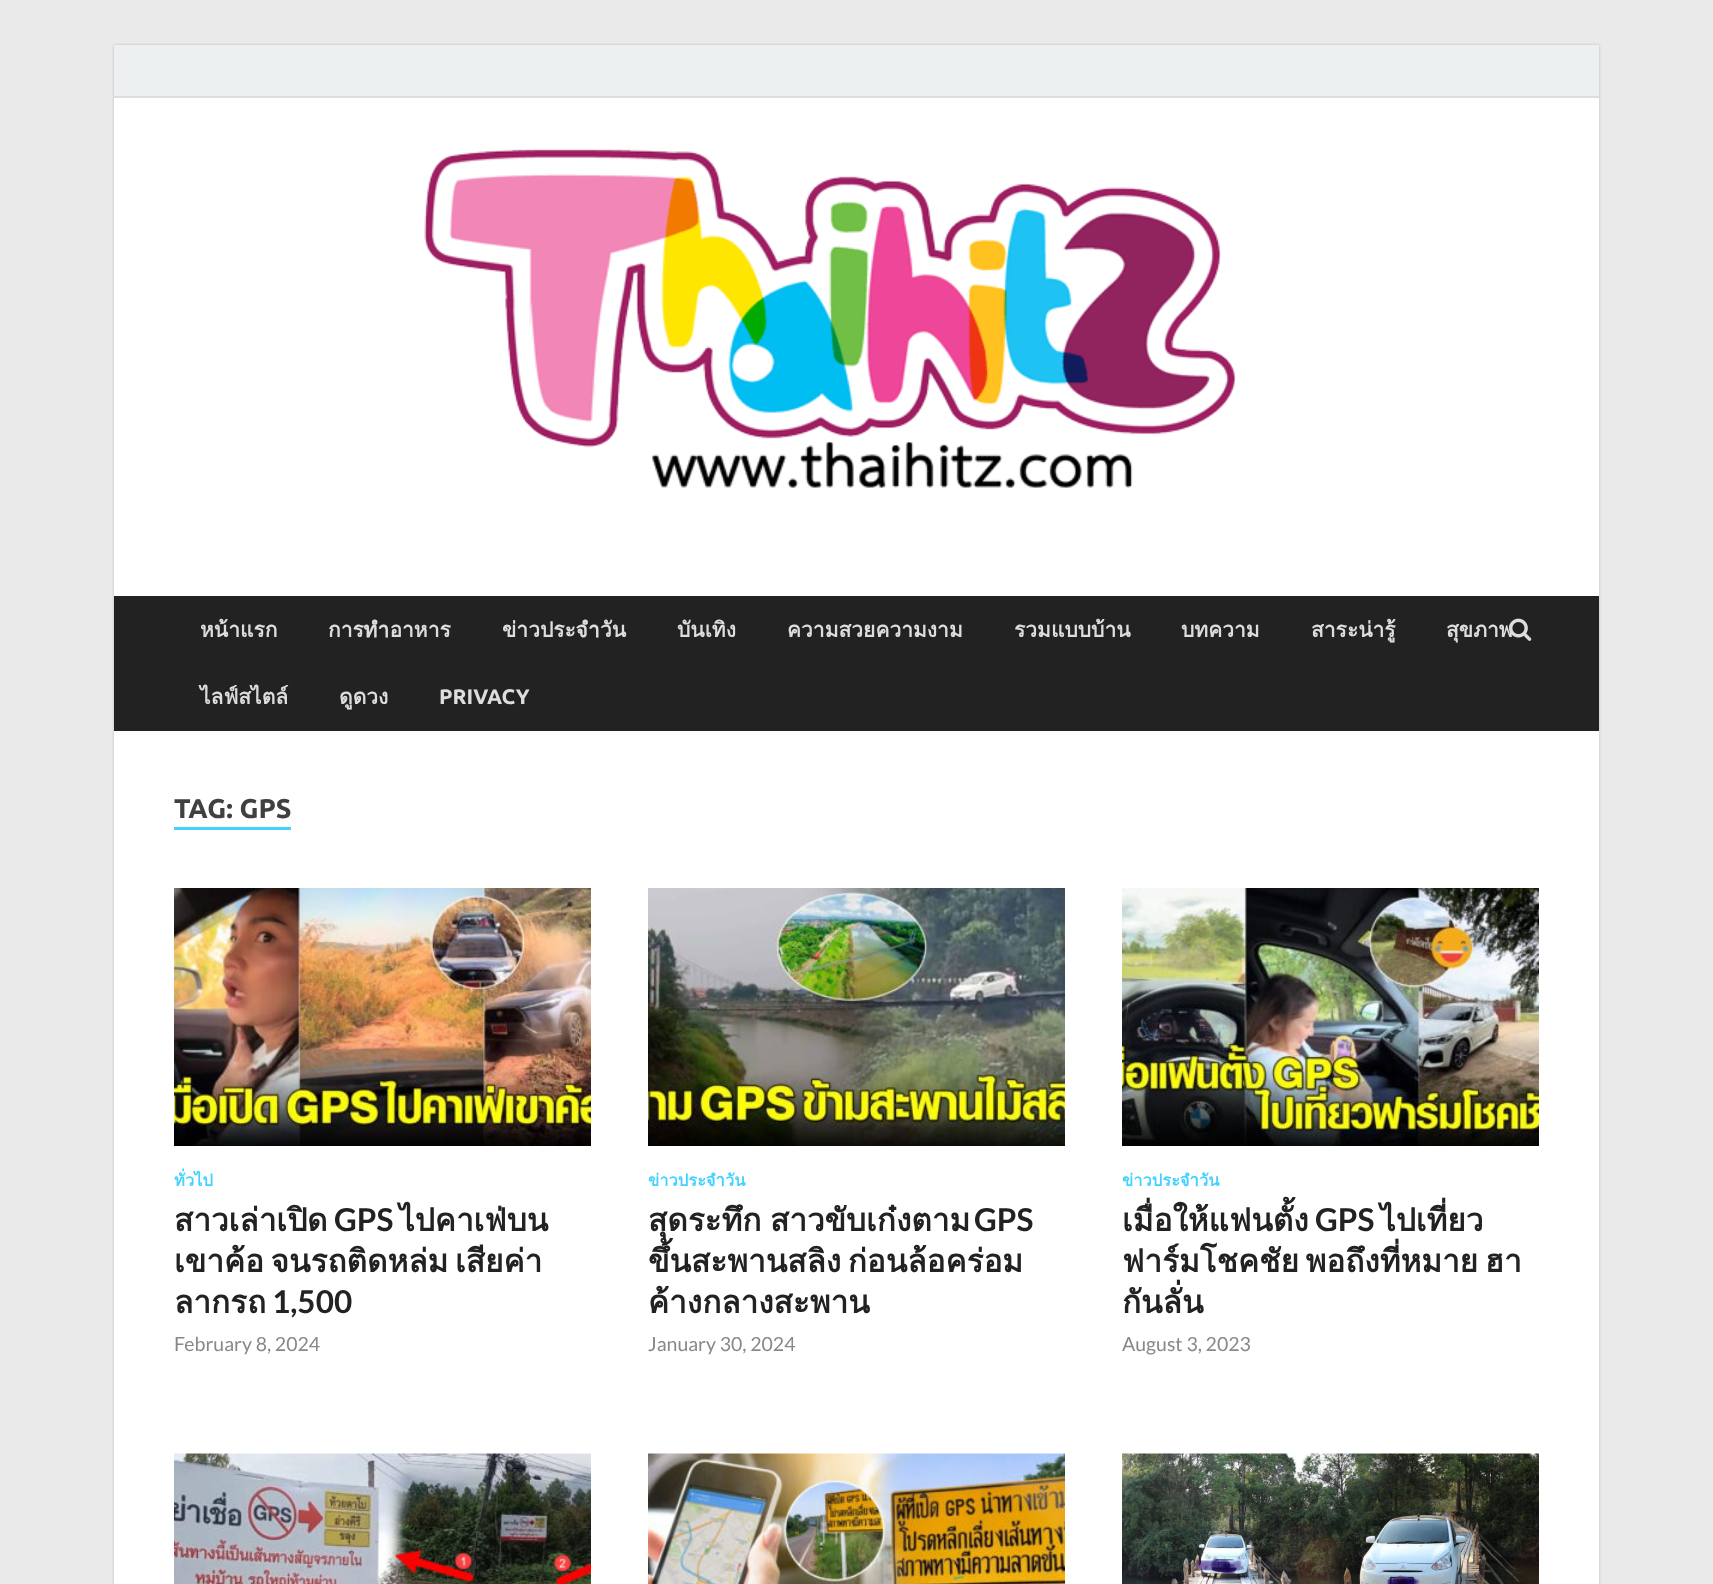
<?xml version="1.0" encoding="UTF-8"?>
<svg xmlns="http://www.w3.org/2000/svg" width="1713" height="1584">
    <defs>
        <filter id="blur1" x="-50%" y="-200%" width="200%" height="500%"><feGaussianBlur stdDeviation="1.5"/></filter>
    </defs>
    <rect width="100%" height="100%" fill="#EAEAEA"/>
    <rect x="114" y="45" width="1485" height="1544" fill="#BBBBBB" filter="url(#blur1)"/>
    <rect x="114" y="98" width="1485" height="1486" fill="#FFFFFF"/>
    <rect x="114" y="45" width="1485" height="51" fill="#ECF0F1"/>
    <rect x="114" y="96" width="1485" height="2" fill="#DDDDDD"/>
    <image x="424" y="149" width="812" height="339" href="img_01.png"/>
    <rect x="114" y="596" width="1485" height="135" fill="#222222"/>
    <text x="200" y="637" font-family="Loma" font-size="21" font-weight="700" fill="#DDDDDD">หน้าแรก</text>
    <text x="328" y="637" font-family="Loma" font-size="21" font-weight="700" fill="#DDDDDD">การทำอาหาร</text>
    <text x="502" y="637" font-family="Loma" font-size="21" font-weight="700" fill="#DDDDDD">ข่าวประจำวัน</text>
    <text x="677" y="637" font-family="Loma" font-size="21" font-weight="700" fill="#DDDDDD">บันเทิง</text>
    <text x="787" y="637" font-family="Loma" font-size="21" font-weight="700" fill="#DDDDDD">ความสวยความงาม</text>
    <text x="1014" y="637" font-family="Loma" font-size="21" font-weight="700" fill="#DDDDDD">รวมแบบบ้าน</text>
    <text x="1181" y="637" font-family="Loma" font-size="21" font-weight="700" fill="#DDDDDD">บทความ</text>
    <text x="1311" y="637" font-family="Loma" font-size="21" font-weight="700" fill="#DDDDDD">สาระน่ารู้</text>
    <text x="1446" y="637" font-family="Loma" font-size="21" font-weight="700" fill="#DDDDDD">สุขภาพ</text>
    <text x="200" y="704" font-family="Loma" font-size="21" font-weight="700" fill="#DDDDDD">ไลฟ์สไตล์</text>
    <text x="339" y="704" font-family="Loma" font-size="21" font-weight="700" fill="#DDDDDD">ดูดวง</text>
    <text x="439" y="704" font-family="Ubuntu" font-size="21" font-weight="700" fill="#DDDDDD">PRIVACY</text>
    <image x="1509" y="618" width="23" height="23" href="img_02.png"/>
    <text x="174" y="818" font-family="Ubuntu" font-size="27" font-weight="700" fill="#404040">TAG: GPS</text>
    <rect x="174" y="827" width="117" height="3" fill="#42D2FF"/>
    <image x="174" y="888" width="417" height="258" href="img_03.png"/>
    <text x="174" y="1186" font-family="Loma" font-size="16.5" font-weight="700" fill="#42D2FF">ทั่วไป</text>
    <text x="174" y="1231" font-family="Loma" font-size="31.5" font-weight="700" fill="#222222">สาวเล่าเปิด</text>
    <text x="334" y="1231" font-family="Lato" font-size="31.5" font-weight="700" fill="#222222">GPS</text>
    <text x="399" y="1231" font-family="Loma" font-size="31.5" font-weight="700" fill="#222222">ไปคาเฟ่บน</text>
    <text font-family="Loma" font-size="31.5" font-weight="700" fill="#222222">
        <tspan x="174" y="1272" word-spacing="-4">เขาค้อ จนรถติดหล่ม เสียค่า</tspan>
        <tspan x="174" y="1313">ลากรถ</tspan>
    </text>
    <text x="272" y="1313" font-family="Lato" font-size="31.5" font-weight="700" fill="#222222">1,500</text>
    <text x="174" y="1351" font-family="Lato" font-size="19.5" fill="#888888">February 8, 2024</text>
    <image x="648" y="888" width="417" height="258" href="img_04.png"/>
    <text x="648" y="1186" font-family="Loma" font-size="16.5" font-weight="700" fill="#42D2FF">ข่าวประจำวัน</text>
    <text x="648" y="1231" word-spacing="-2" font-family="Loma" font-size="31.5" font-weight="700" fill="#222222">สุดระทึก สาวขับเก๋งตาม</text>
    <text x="974" y="1231" font-family="Lato" font-size="31.5" font-weight="700" fill="#222222">GPS</text>
    <text font-family="Loma" font-size="31.5" font-weight="700" fill="#222222">
        <tspan x="648" y="1272" word-spacing="-4">ขึ้นสะพานสลิง ก่อนล้อคร่อม</tspan>
        <tspan x="648" y="1313">ค้างกลางสะพาน</tspan>
    </text>
    <text x="648" y="1351" font-family="Lato" font-size="19.5" fill="#888888">January 30, 2024</text>
    <image x="1122" y="888" width="417" height="258" href="img_05.png"/>
    <text x="1122" y="1186" font-family="Loma" font-size="16.5" font-weight="700" fill="#42D2FF">ข่าวประจำวัน</text>
    <text x="1122" y="1231" font-family="Loma" font-size="31.5" font-weight="700" fill="#222222">เมื่อให้แฟนตั้ง</text>
    <text x="1315" y="1231" font-family="Lato" font-size="31.5" font-weight="700" fill="#222222">GPS</text>
    <text x="1380" y="1231" font-family="Loma" font-size="31.5" font-weight="700" fill="#222222">ไปเที่ยว</text>
    <text font-family="Loma" font-size="31.5" font-weight="700" fill="#222222">
        <tspan x="1122" y="1272" word-spacing="-4">ฟาร์มโชคชัย พอถึงที่หมาย ฮา</tspan>
        <tspan x="1122" y="1313">กันลั่น</tspan>
    </text>
    <text x="1122" y="1351" font-family="Lato" font-size="19.5" fill="#888888">August 3, 2023</text>
    <image x="174" y="1453" width="417" height="131" href="img_06.png"/>
    <image x="648" y="1453" width="417" height="131" href="img_07.png"/>
    <image x="1122" y="1453" width="417" height="131" href="img_08.png"/>
</svg>
